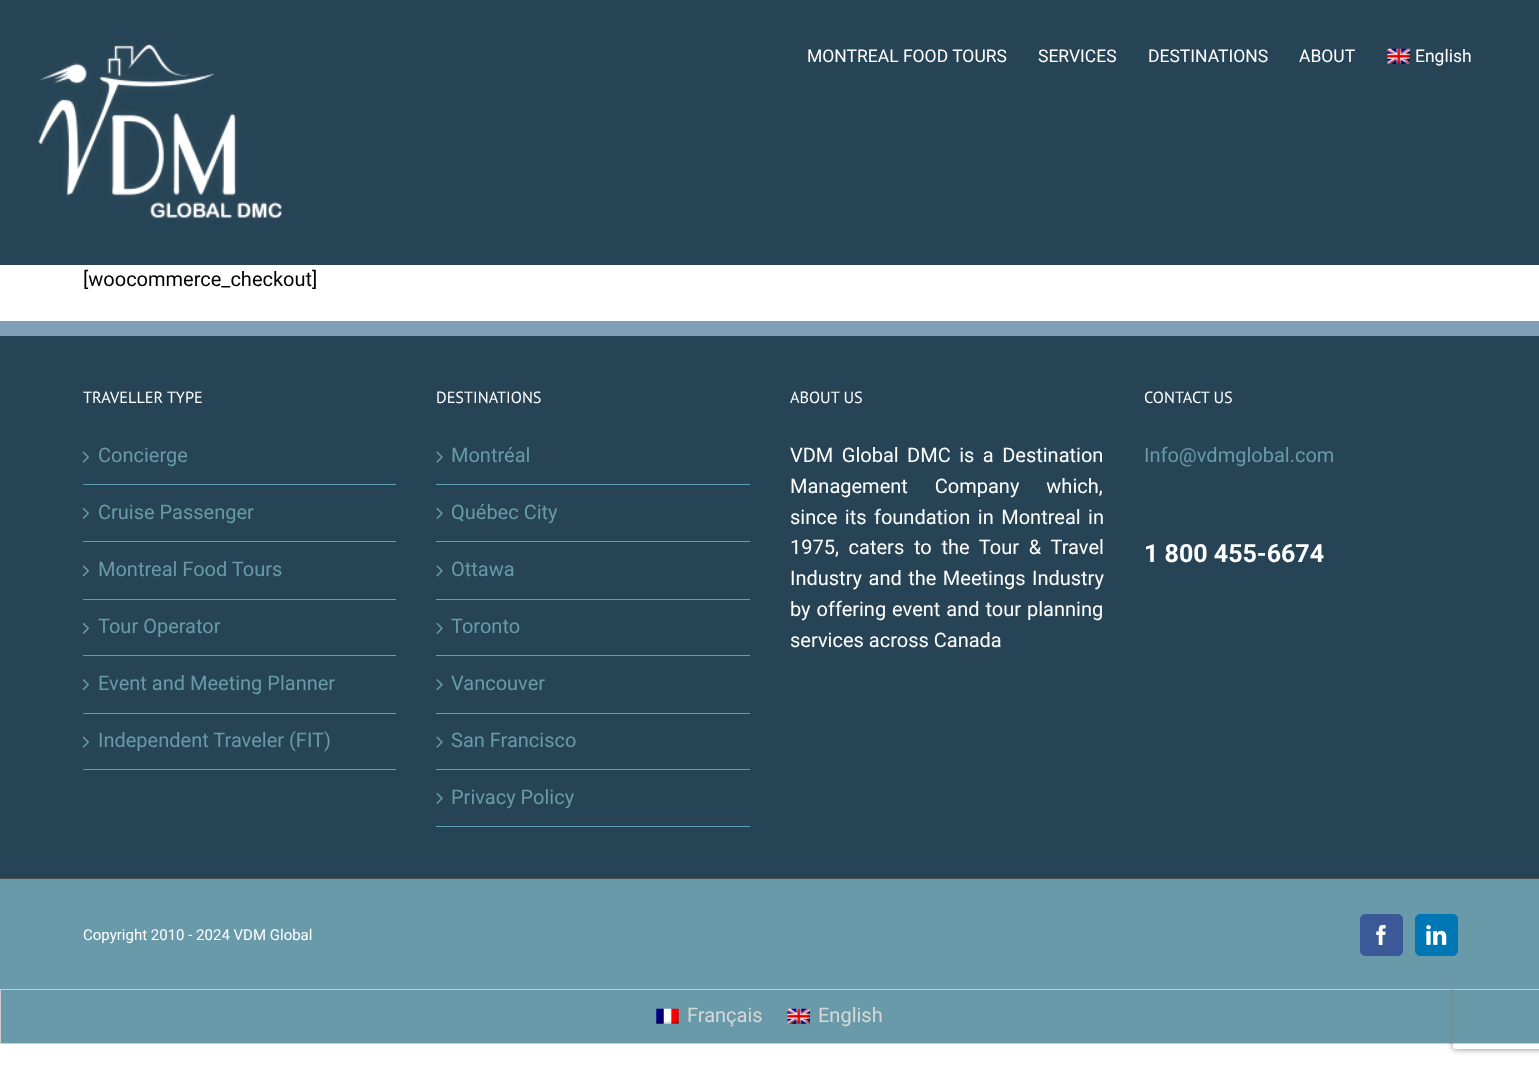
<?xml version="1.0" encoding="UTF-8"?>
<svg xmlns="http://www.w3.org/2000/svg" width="1539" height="1066">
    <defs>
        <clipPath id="clip1"><path d="M 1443 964 H 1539 V 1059 H 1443 Z M 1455.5 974 H 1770.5 C 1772 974 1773 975 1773 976.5 V 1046.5 C 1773 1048 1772 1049 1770.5 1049 H 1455.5 C 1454 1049 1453 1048 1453 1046.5 V 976.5 C 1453 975 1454 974 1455.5 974 Z" clip-rule="evenodd"/></clipPath>
        <filter id="blur1" x="-50%" y="-200%" width="200%" height="500%"><feGaussianBlur stdDeviation="3"/></filter>
    </defs>
    <rect width="100%" height="100%" fill="#FFFFFF"/>
    <rect x="0" y="0" width="1539" height="265" fill="#264456"/>
    <image x="38" y="44" width="244" height="175" href="img_01.png"/>
    <text x="807" y="62" font-family="Roboto" font-size="17.5" fill="#FFFFFF">MONTREAL FOOD TOURS</text>
    <text x="1038" y="62" font-family="Roboto" font-size="17.5" fill="#FFFFFF">SERVICES</text>
    <text x="1148" y="62" font-family="Roboto" font-size="17.5" fill="#FFFFFF">DESTINATIONS</text>
    <text x="1299" y="62" font-family="Roboto" font-size="17.5" fill="#FFFFFF">ABOUT</text>
    <image x="1387" y="48" width="23" height="16" href="img_02.png"/>
    <text x="1415" y="62" font-family="Roboto" font-size="17.5" fill="#FFFFFF">English</text>
    <text x="83" y="286" font-family="Roboto" font-size="20" fill="#000000">[woocommerce_checkout]</text>
    <rect x="0" y="336" width="1539" height="542" fill="#264456"/>
    <rect x="0" y="321" width="1539" height="15" fill="#80A1B5"/>
    <text x="83" y="403" font-family="PT Sans" font-size="16.25" fill="#FFFFFF">TRAVELLER TYPE</text>
    <rect x="83" y="484" width="313" height="1" fill="#5E9FB5"/>
    <image x="82" y="451" width="7" height="12" href="img_03.png"/>
    <text x="98" y="462" font-family="Roboto" font-size="20" fill="#689AAA">Concierge</text>
    <rect x="83" y="541" width="313" height="1" fill="#5E9FB5"/>
    <image x="82" y="507" width="7" height="12" href="img_04.png"/>
    <text x="98" y="519" font-family="Roboto" font-size="20" fill="#689AAA">Cruise Passenger</text>
    <rect x="83" y="599" width="313" height="1" fill="#5E9FB5"/>
    <image x="82" y="565" width="7" height="12" href="img_05.png"/>
    <text x="98" y="576" font-family="Roboto" font-size="20" fill="#689AAA">Montreal Food Tours</text>
    <rect x="83" y="655" width="313" height="1" fill="#5E9FB5"/>
    <image x="82" y="622" width="7" height="12" href="img_04.png"/>
    <text x="98" y="633" font-family="Roboto" font-size="20" fill="#689AAA">Tour Operator</text>
    <rect x="83" y="713" width="313" height="1" fill="#5E9FB5"/>
    <image x="82" y="679" width="7" height="12" href="img_06.png"/>
    <text x="98" y="690" font-family="Roboto" font-size="20" fill="#689AAA">Event and Meeting Planner</text>
    <rect x="83" y="769" width="313" height="1" fill="#5E9FB5"/>
    <image x="82" y="736" width="7" height="12" href="img_03.png"/>
    <text x="98" y="747" font-family="Roboto" font-size="20" fill="#689AAA">Independent Traveler (FIT)</text>
    <text x="436" y="403" font-family="PT Sans" font-size="16.25" fill="#FFFFFF">DESTINATIONS</text>
    <rect x="436" y="484" width="314" height="1" fill="#5E9FB5"/>
    <image x="436" y="451" width="7" height="12" href="img_07.png"/>
    <text x="451" y="462" font-family="Roboto" font-size="20" fill="#689AAA">Montréal</text>
    <rect x="436" y="541" width="314" height="1" fill="#5E9FB5"/>
    <image x="436" y="507" width="7" height="12" href="img_08.png"/>
    <text x="451" y="519" font-family="Roboto" font-size="20" fill="#689AAA">Québec City</text>
    <rect x="436" y="599" width="314" height="1" fill="#5E9FB5"/>
    <image x="436" y="565" width="7" height="12" href="img_09.png"/>
    <text x="451" y="576" font-family="Roboto" font-size="20" fill="#689AAA">Ottawa</text>
    <rect x="436" y="655" width="314" height="1" fill="#5E9FB5"/>
    <image x="436" y="622" width="7" height="12" href="img_08.png"/>
    <text x="451" y="633" font-family="Roboto" font-size="20" fill="#689AAA">Toronto</text>
    <rect x="436" y="713" width="314" height="1" fill="#5E9FB5"/>
    <image x="436" y="679" width="7" height="12" href="img_10.png"/>
    <text x="451" y="690" font-family="Roboto" font-size="20" fill="#689AAA">Vancouver</text>
    <rect x="436" y="769" width="314" height="1" fill="#5E9FB5"/>
    <image x="436" y="736" width="7" height="12" href="img_07.png"/>
    <text x="451" y="747" font-family="Roboto" font-size="20" fill="#689AAA">San Francisco</text>
    <rect x="436" y="826" width="314" height="1" fill="#5E9FB5"/>
    <image x="436" y="792" width="7" height="12" href="img_08.png"/>
    <text x="451" y="804" font-family="Roboto" font-size="20" fill="#689AAA">Privacy Policy</text>
    <text x="790" y="403" font-family="PT Sans" font-size="16.25" fill="#FFFFFF">ABOUT US</text>
    <text font-family="Roboto" font-size="20" fill="#FFFFFF">
        <tspan x="790" y="462" word-spacing="3.5">VDM Global DMC is a Destination</tspan>
        <tspan x="790" y="493" word-spacing="22">Management Company which,</tspan>
        <tspan x="790" y="524" word-spacing="2.5">since its foundation in Montreal in</tspan>
        <tspan x="790" y="554" word-spacing="4.75">1975, caters to the Tour &amp; Travel</tspan>
        <tspan x="790" y="585" word-spacing="1.5">Industry and the Meetings Industry</tspan>
        <tspan x="790" y="616" word-spacing="1">by offering event and tour planning</tspan>
        <tspan x="790" y="647">services across Canada</tspan>
    </text>
    <text x="1144" y="403" font-family="PT Sans" font-size="16.25" fill="#FFFFFF">CONTACT US</text>
    <text x="1144" y="462" font-family="Roboto" font-size="20" fill="#689AAA">Info@vdmglobal.com</text>
    <text x="1144" y="562" font-family="Roboto" font-size="25" font-weight="700" fill="#FFFFFF">1 800 455-6674</text>
    <rect x="0.5" y="989.5" width="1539" height="54" fill="#689AAA" stroke="#CDCDCD"/>
    <g clip-path="url(#clip1)">
        <rect x="1453" y="974" width="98" height="75" rx="2.5" fill="#808080" filter="url(#blur1)"/>
    </g>
    <rect x="0" y="879" width="1539" height="110" fill="#689AAA"/>
    <rect x="0" y="878" width="1539" height="1" fill="#4B4C4D"/>
    <text x="83" y="940" font-family="Roboto" font-size="15" fill="#FFFFFF">Copyright 2010 - 2024 VDM Global</text>
    <rect x="1360.5" y="914.5" width="42" height="41" rx="4.5" fill="#3B5998" stroke="#3B5998"/>
    <image x="1376" y="925" width="10" height="20" href="img_11.png"/>
    <rect x="1415.5" y="914.5" width="42" height="41" rx="4.5" fill="#0077B5" stroke="#0077B5"/>
    <image x="1426" y="925" width="21" height="20" href="img_12.png"/>
    <image x="656" y="1008" width="23" height="16" href="img_13.png"/>
    <text x="687" y="1022" font-family="Roboto" font-size="20" fill="#D8D8D8">Français</text>
    <image x="787" y="1008" width="23" height="16" href="img_14.png"/>
    <text x="818" y="1022" font-family="Roboto" font-size="20" fill="#D8D8D8">English</text>
</svg>
